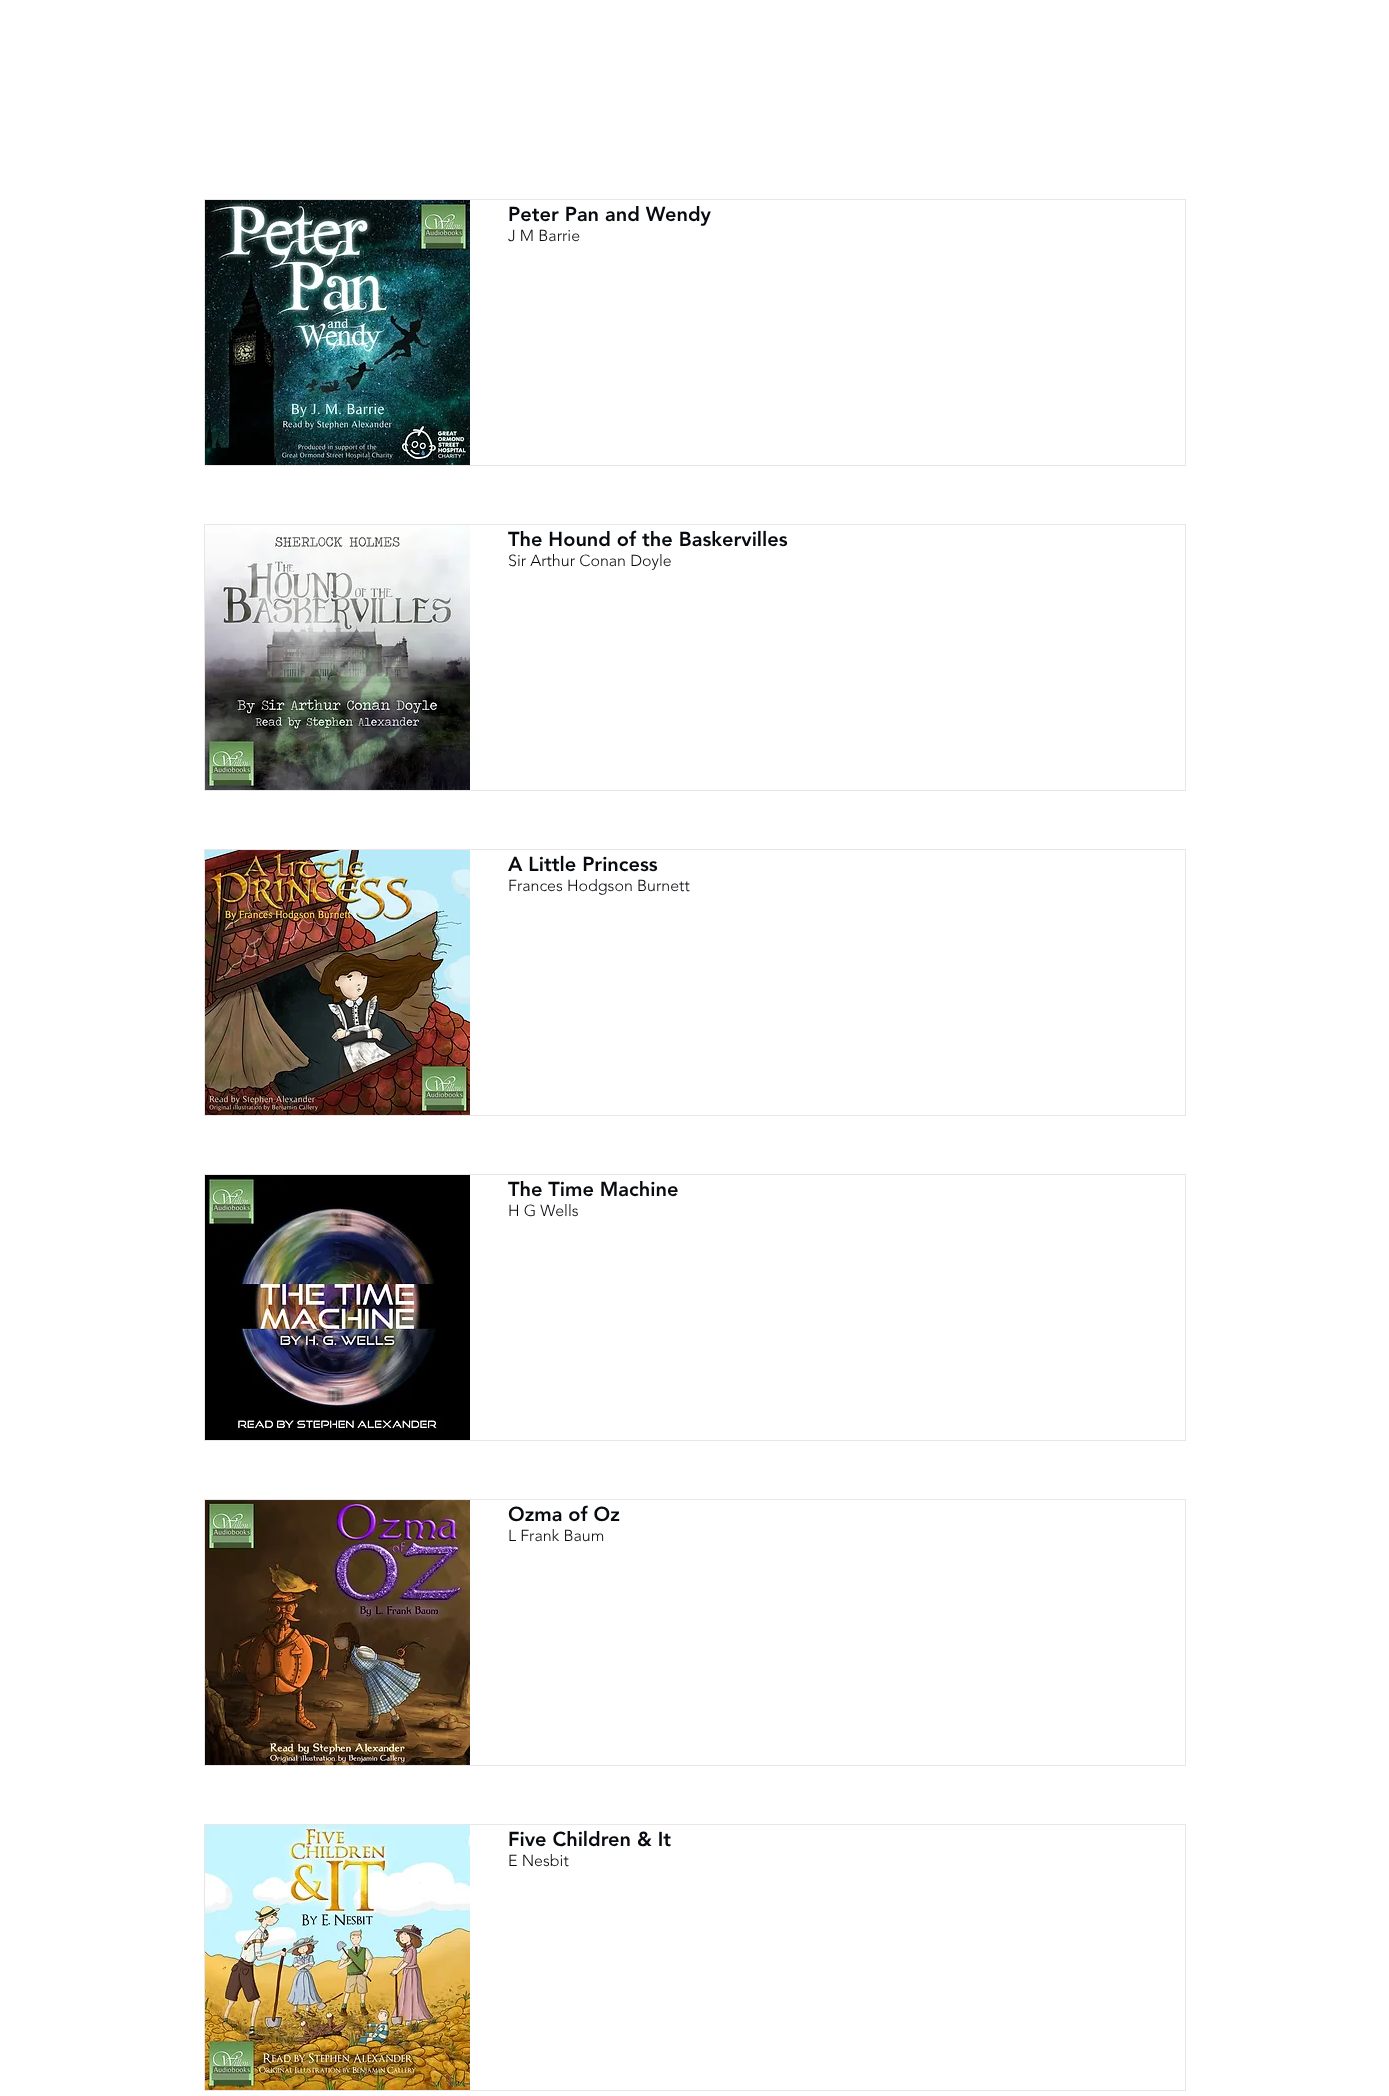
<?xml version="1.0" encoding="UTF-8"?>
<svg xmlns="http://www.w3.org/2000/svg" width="1389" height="2096">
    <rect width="100%" height="100%" fill="#FFFFFF"/>
    <rect x="204.5" y="199.5" width="981" height="266" fill="none" stroke="#E8E6E6"/>
    <image x="205" y="200" width="265" height="265" href="img_01.png"/>
    <text x="508" y="221" font-family="'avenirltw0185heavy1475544'" font-size="20" font-weight="900" fill="#070A0E">Peter Pan and Wendy</text>
    <text x="508" y="241" font-family="'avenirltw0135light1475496'" font-size="16" font-weight="300" fill="#070A0E">J M Barrie</text>
    <rect x="204.5" y="524.5" width="981" height="266" fill="none" stroke="#E8E6E6"/>
    <image x="205" y="525" width="265" height="265" href="img_02.png"/>
    <text x="508" y="546" font-family="'avenirltw0185heavy1475544'" font-size="20" font-weight="900" fill="#070A0E">The Hound of the Baskervilles</text>
    <text x="508" y="566" font-family="'avenirltw0135light1475496'" font-size="16" font-weight="300" fill="#070A0E">Sir Arthur Conan Doyle</text>
    <rect x="204.5" y="849.5" width="981" height="266" fill="none" stroke="#E8E6E6"/>
    <image x="205" y="850" width="265" height="265" href="img_03.png"/>
    <text x="508" y="871" font-family="'avenirltw0185heavy1475544'" font-size="20" font-weight="900" fill="#070A0E">A Little Princess</text>
    <text x="508" y="891" font-family="'avenirltw0135light1475496'" font-size="16" font-weight="300" fill="#070A0E">Frances Hodgson Burnett</text>
    <rect x="204.5" y="1174.5" width="981" height="266" fill="none" stroke="#E8E6E6"/>
    <image x="205" y="1175" width="265" height="265" href="img_04.png"/>
    <text x="508" y="1196" font-family="'avenirltw0185heavy1475544'" font-size="20" font-weight="900" fill="#070A0E">The Time Machine</text>
    <text x="508" y="1216" font-family="'avenirltw0135light1475496'" font-size="16" font-weight="300" fill="#070A0E">H G Wells</text>
    <rect x="204.5" y="1499.5" width="981" height="266" fill="none" stroke="#E8E6E6"/>
    <image x="205" y="1500" width="265" height="265" href="img_05.png"/>
    <text x="508" y="1521" font-family="'avenirltw0185heavy1475544'" font-size="20" font-weight="900" fill="#070A0E">Ozma of Oz</text>
    <text x="508" y="1541" font-family="'avenirltw0135light1475496'" font-size="16" font-weight="300" fill="#070A0E">L Frank Baum</text>
    <rect x="204.5" y="1824.5" width="981" height="266" fill="none" stroke="#E8E6E6"/>
    <image x="205" y="1825" width="265" height="265" href="img_06.png"/>
    <text x="508" y="1846" font-family="'avenirltw0185heavy1475544'" font-size="20" font-weight="900" fill="#070A0E">Five Children &amp; It</text>
    <text x="508" y="1866" font-family="'avenirltw0135light1475496'" font-size="16" font-weight="300" fill="#070A0E">E Nesbit</text>
</svg>
